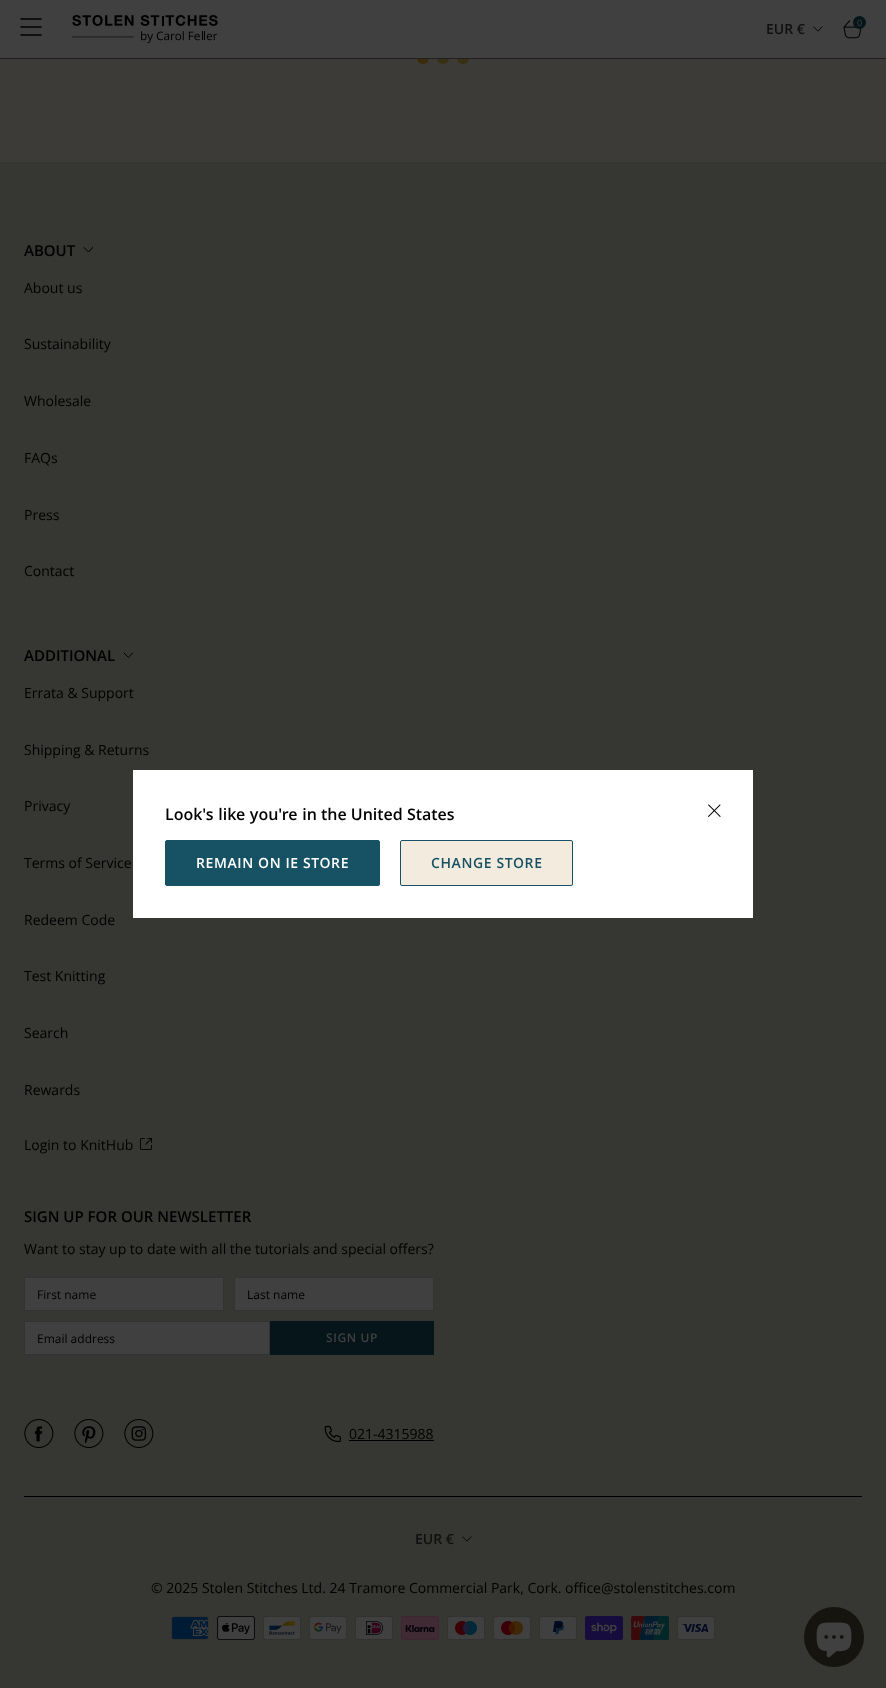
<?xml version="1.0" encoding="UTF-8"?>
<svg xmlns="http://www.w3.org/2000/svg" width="886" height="1688">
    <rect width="100%" height="100%" fill="#3D3B38"/>
    <circle cx="423" cy="58" r="6" fill="#382C09"/>
    <circle cx="443" cy="58" r="6" fill="#392F12"/>
    <circle cx="463" cy="58" r="6" fill="#392F12"/>
    <rect x="0" y="0" width="886" height="58" fill="#404040"/>
    <rect x="0" y="58" width="886" height="1" fill="#202020"/>
    <path d="M 21 19 H 41 M 21 27 H 41 M 21 35 H 41" fill="none" stroke="#000000" stroke-width="1.5" stroke-linecap="round"/>
    <image x="72" y="15" width="146" height="28" href="img_01.png"/>
    <text x="766" y="34" font-family="Open Sans" font-size="14" font-weight="600" fill="#101010">EUR €</text>
    <image x="813" y="26" width="10" height="6" href="img_02.png"/>
    <image x="843" y="20" width="19" height="19" href="img_03.png"/>
    <circle cx="859.5" cy="22.5" r="6.5" fill="#061519"/>
    <text x="857" y="26" font-family="Open Sans" font-size="9" fill="#404040">0</text>
    <rect x="0" y="162" width="886" height="1526" fill="#363732"/>
    <rect x="24" y="1496" width="838" height="1" fill="#000000"/>
    <text x="24" y="256" font-family="Open Sans" font-size="15" font-weight="600" fill="#000000">ABOUT</text>
    <path d="M 84 247.5 L 88.5 252 L 92.5 247.5" fill="none" stroke="#000000" stroke-linecap="round"/>
    <text x="24" y="293" font-family="Open Sans" font-size="14" fill="#000000">About us</text>
    <text x="24" y="349" font-family="Open Sans" font-size="14" fill="#000000">Sustainability</text>
    <text x="24" y="406" font-family="Open Sans" font-size="14" fill="#000000">Wholesale</text>
    <text x="24" y="463" font-family="Open Sans" font-size="14" fill="#000000">FAQs</text>
    <text x="24" y="520" font-family="Open Sans" font-size="14" fill="#000000">Press</text>
    <text x="24" y="576" font-family="Open Sans" font-size="14" fill="#000000">Contact</text>
    <text x="24" y="661" font-family="Open Sans" font-size="15" font-weight="600" fill="#000000">ADDITIONAL</text>
    <path d="M 124 653 L 128.5 657.5 L 132.5 653" fill="none" stroke="#000000" stroke-linecap="round"/>
    <text x="24" y="698" font-family="Open Sans" font-size="14" fill="#000000">Errata &amp; Support</text>
    <text x="24" y="755" font-family="Open Sans" font-size="14" fill="#000000">Shipping &amp; Returns</text>
    <text x="24" y="811" font-family="Open Sans" font-size="14" fill="#000000">Privacy</text>
    <text x="24" y="868" font-family="Open Sans" font-size="14" fill="#000000">Terms of Service</text>
    <text x="24" y="925" font-family="Open Sans" font-size="14" fill="#000000">Redeem Code</text>
    <text x="24" y="981" font-family="Open Sans" font-size="14" fill="#000000">Test Knitting</text>
    <text x="24" y="1038" font-family="Open Sans" font-size="14" fill="#000000">Search</text>
    <text x="24" y="1095" font-family="Open Sans" font-size="14" fill="#000000">Rewards</text>
    <text x="24" y="1150" font-family="Open Sans" font-size="14" fill="#000000">Login to KnitHub</text>
    <image x="140" y="1138" width="12" height="12" href="img_04.png"/>
    <text x="24" y="1222" font-family="Open Sans" font-size="15" font-weight="600" fill="#000000">SIGN UP FOR OUR NEWSLETTER</text>
    <text x="24" y="1254" font-family="Open Sans" font-size="14" fill="#000000">Want to stay up to date with all the tutorials and special offers?</text>
    <rect x="24.5" y="1277.5" width="199" height="33" fill="#404040" stroke="#323333"/>
    <text x="37" y="1299" font-family="Open Sans" font-size="12" fill="#000000">First name</text>
    <rect x="234.5" y="1277.5" width="199" height="33" fill="#404040" stroke="#323333"/>
    <text x="247" y="1299" font-family="Open Sans" font-size="12" fill="#000000">Last name</text>
    <rect x="24.5" y="1321.5" width="245" height="33" fill="#404040" stroke="#323333"/>
    <text x="37" y="1343" font-family="Open Sans" font-size="12" fill="#000000">Email address</text>
    <rect x="270" y="1321" width="164" height="34" fill="#061519"/>
    <text x="326" y="1342" font-family="'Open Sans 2'" font-size="12" font-weight="600" letter-spacing="0.6" fill="#404040">SIGN UP</text>
    <image x="24" y="1419" width="30" height="29" href="img_05.png"/>
    <image x="74" y="1419" width="30" height="29" href="img_06.png"/>
    <image x="124" y="1419" width="30" height="29" href="img_07.png"/>
    <image x="324" y="1425" width="17" height="18" href="img_08.png"/>
    <text x="349" y="1439" font-family="Open Sans" font-size="14" fill="#000000">021-4315988</text>
    <rect x="349" y="1440" width="85" height="1" fill="#000000"/>
    <text x="415" y="1544" font-family="Open Sans" font-size="14" font-weight="600" fill="#101010">EUR €</text>
    <image x="462" y="1536" width="10" height="6" href="img_09.png"/>
    <text x="151" y="1593" font-family="Open Sans" font-size="14" fill="#000000">© 2025 Stolen Stitches Ltd. 24 Tramore Commercial Park, Cork. office@stolenstitches.com</text>
    <image x="171" y="1616" width="38" height="24" href="img_10.png"/>
    <image x="217" y="1616" width="38" height="24" href="img_11.png"/>
    <image x="263" y="1616" width="38" height="24" href="img_12.png"/>
    <image x="309" y="1616" width="38" height="24" href="img_13.png"/>
    <image x="355" y="1616" width="38" height="24" href="img_14.png"/>
    <image x="401" y="1616" width="38" height="24" href="img_15.png"/>
    <image x="447" y="1616" width="38" height="24" href="img_16.png"/>
    <image x="493" y="1616" width="38" height="24" href="img_17.png"/>
    <image x="539" y="1616" width="38" height="24" href="img_18.png"/>
    <image x="585" y="1616" width="38" height="24" href="img_19.png"/>
    <image x="631" y="1616" width="38" height="24" href="img_20.png"/>
    <image x="677" y="1616" width="38" height="24" href="img_21.png"/>
    <rect x="133" y="770" width="620" height="148" fill="#FFFFFF"/>
    <text x="165" y="820" word-spacing="0.5" font-family="'Open Sans 2'" font-size="16" font-weight="600" fill="#000000">Look's like you're in</text>
    <text x="321" y="820" font-family="'Open Sans 2'" font-size="16" font-weight="600" fill="#000000">the United States</text>
    <rect x="165.5" y="840.5" width="214" height="45" rx="1.5" fill="#175264" stroke="#175264"/>
    <text x="196" y="868" font-family="'Open Sans 2'" font-size="14" font-weight="600" letter-spacing="0.6" fill="#FFFFFF">REMAIN ON IE STORE</text>
    <rect x="400.5" y="840.5" width="172" height="45" rx="1.5" fill="#F3EBDE" stroke="#175264"/>
    <text x="431" y="868" font-family="'Open Sans 2'" font-size="14" font-weight="600" letter-spacing="0.6" fill="#175264">CHANGE STORE</text>
    <image x="708" y="804" width="13" height="13" href="img_22.png"/>
    <circle cx="834" cy="1637" r="30" fill="#16140E"/>
    <image x="816" y="1622" width="36" height="36" href="img_23.png"/>
</svg>
